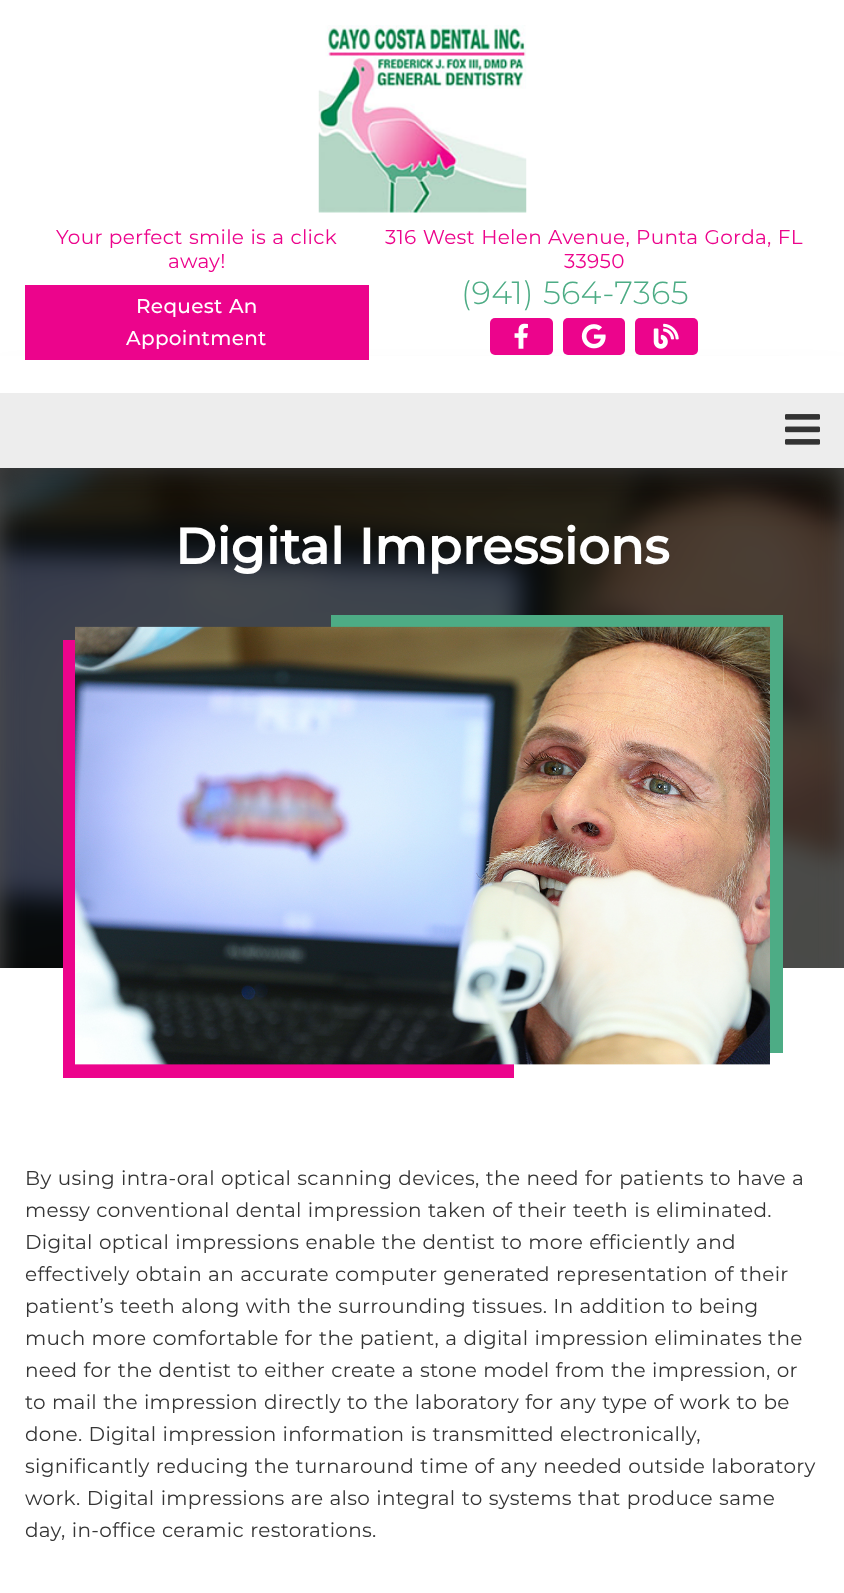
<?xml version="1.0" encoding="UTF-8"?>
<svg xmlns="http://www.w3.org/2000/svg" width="844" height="1593">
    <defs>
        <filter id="blur1" x="-50%" y="-200%" width="200%" height="500%"><feGaussianBlur stdDeviation="25"/></filter>
    </defs>
    <rect width="100%" height="100%" fill="#FFFFFF"/>
    <rect x="0" y="468" width="844" height="500" fill="#4D4D4D"/>
    <image x="0" y="468" width="844" height="500" href="img_06.png"/>
    <rect x="0" y="405" width="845" height="75" fill="#000000" fill-opacity="0.4" filter="url(#blur1)"/>
    <rect x="0" y="356" width="844" height="37" fill="#FFFFFF"/>
    <image x="318" y="25" width="209" height="188" href="img_01.png"/>
    <text x="56" y="244" word-spacing="0.6" font-family="Montserrat" font-size="20" letter-spacing="0.3" fill="#EC048C">Your perfect smile is a click</text>
    <text x="168" y="268" font-family="Montserrat" font-size="20" letter-spacing="0.3" fill="#EC048C">away!</text>
    <rect x="25" y="285" width="344" height="75" fill="#EC048C"/>
    <text x="136" y="313" word-spacing="0.6" font-family="Montserrat" font-size="20" font-weight="500" letter-spacing="0.3" fill="#FFFFFF">Request An</text>
    <text x="126" y="345" font-family="Montserrat" font-size="20" font-weight="500" letter-spacing="0.3" fill="#FFFFFF">Appointment</text>
    <text x="385" y="244" word-spacing="0.6" font-family="Montserrat" font-size="20" letter-spacing="0.3" fill="#EC048C">316 West Helen Avenue,</text>
    <text x="636" y="244" word-spacing="0.6" font-family="Montserrat" font-size="20" letter-spacing="0.3" fill="#EC048C">Punta Gorda, FL</text>
    <text x="564" y="268" font-family="Montserrat" font-size="20" letter-spacing="0.3" fill="#EC048C">33950</text>
    <text x="461" y="304" word-spacing="0.6" font-family="Montserrat" font-size="32" font-weight="300" letter-spacing="0.3" fill="#4DAC85">(941) 564-7365</text>
    <rect x="490" y="318" width="63" height="37" rx="5" fill="#EC048C"/>
    <image x="514" y="323" width="14" height="26" href="img_02.png"/>
    <rect x="563" y="318" width="62" height="37" rx="5" fill="#EC048C"/>
    <image x="581" y="324" width="25" height="25" href="img_03.png"/>
    <rect x="635" y="318" width="63" height="37" rx="5" fill="#EC048C"/>
    <image x="653" y="323" width="26" height="26" href="img_04.png"/>
    <rect x="0" y="393" width="844" height="75" fill="#EDEDED"/>
    <image x="785" y="414" width="35" height="31" href="img_05.png"/>
    <text x="175" y="564" word-spacing="0.6" font-family="Montserrat" font-size="50" font-weight="700" letter-spacing="0.3" fill="#FFFFFF">Digital Impressions</text>
    <rect x="63" y="640" width="451" height="438" fill="#EC048C"/>
    <rect x="331" y="615" width="452" height="438" fill="#4DAC85"/>
    <image x="75" y="626" width="695" height="439" href="img_07.png"/>
    <text font-family="Montserrat" font-size="20" letter-spacing="0.3" fill="#353535">
        <tspan x="25" y="1185" word-spacing="0.6">By using intra-oral optical scanning devices, the need for patients to have a</tspan>
        <tspan x="25" y="1217" word-spacing="0.6">messy conventional dental impression taken of their teeth is eliminated.</tspan>
        <tspan x="25" y="1249" word-spacing="0.6">Digital optical impressions enable the dentist to more efficiently and</tspan>
        <tspan x="25" y="1281" word-spacing="0.6">effectively obtain an accurate computer generated representation of their</tspan>
        <tspan x="25" y="1313" word-spacing="0.6">patient’s teeth along with the surrounding tissues. In addition to being</tspan>
        <tspan x="25" y="1345" word-spacing="0.6">much more comfortable for the patient, a digital impression eliminates the</tspan>
        <tspan x="25" y="1377" word-spacing="0.6">need for the dentist to either create a stone model from the impression, or</tspan>
        <tspan x="25" y="1409" word-spacing="0.6">to mail the impression directly to the laboratory for any type of work to be</tspan>
        <tspan x="25" y="1441" word-spacing="0.6">done. Digital impression information is transmitted electronically,</tspan>
        <tspan x="25" y="1473" word-spacing="0.6">significantly reducing the turnaround time of any needed outside laboratory</tspan>
        <tspan x="25" y="1505" word-spacing="0.6">work. Digital impressions are also integral to systems that produce same</tspan>
        <tspan x="25" y="1537" word-spacing="0.6">day, in-office ceramic restorations.</tspan>
    </text>
</svg>
